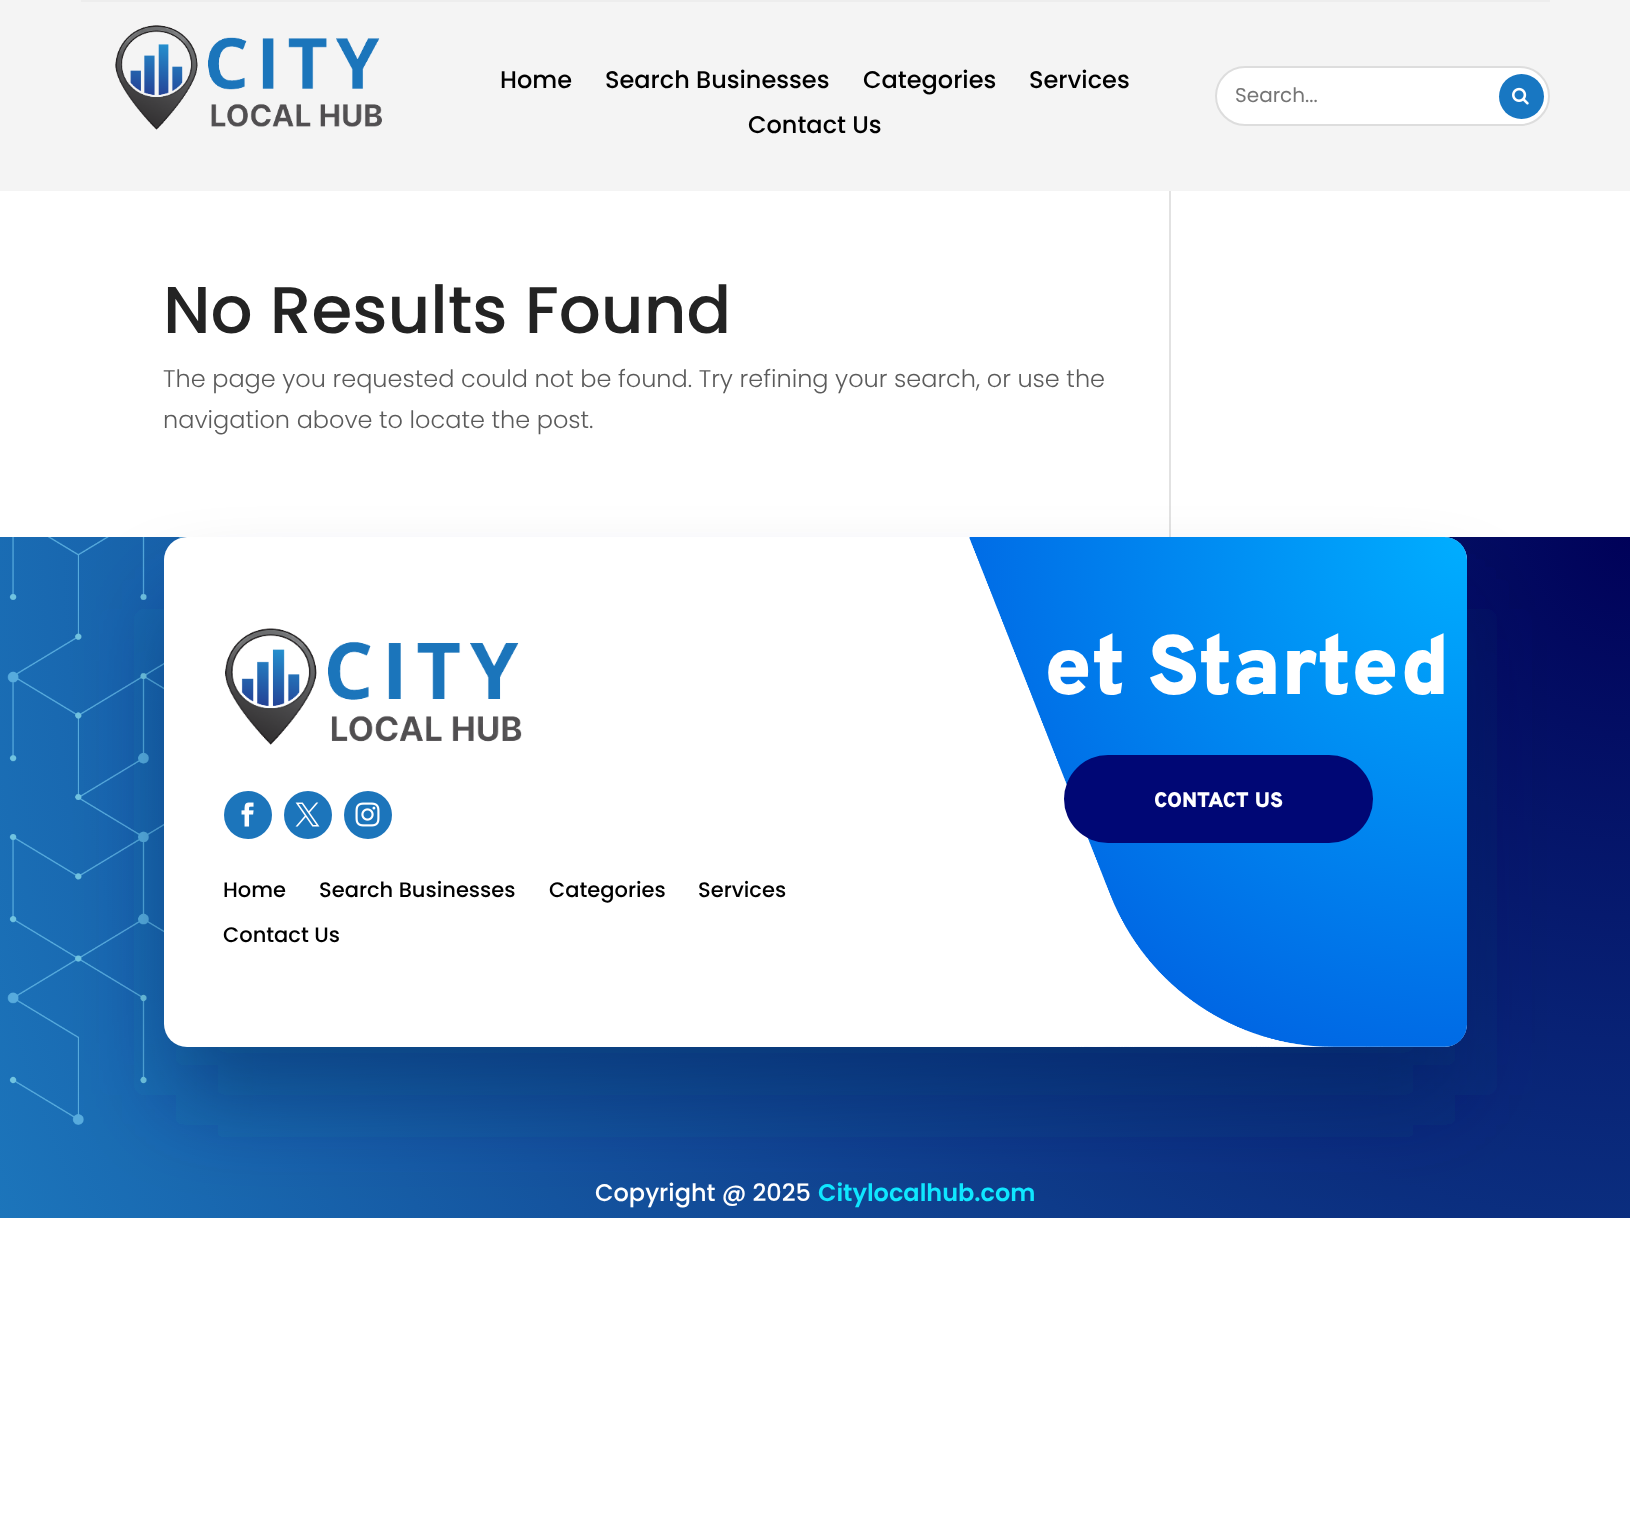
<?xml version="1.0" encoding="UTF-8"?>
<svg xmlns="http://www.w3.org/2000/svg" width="1630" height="1528">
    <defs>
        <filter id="blur1" x="-50%" y="-200%" width="200%" height="500%"><feGaussianBlur stdDeviation="45"/></filter>
    </defs>
    <rect width="100%" height="100%" fill="#FFFFFF"/>
    <rect x="0" y="0" width="1630" height="191" fill="#F4F4F4"/>
    <rect x="81" y="0" width="1469" height="2" fill="#EDEDED"/>
    <image x="115" y="25" width="267" height="105" href="img_01.png"/>
    <text x="500" y="88" font-family="Poppins" font-size="24" font-weight="500" fill="#000000">Home</text>
    <text x="605" y="88" font-family="Poppins" font-size="24" font-weight="500" fill="#000000">Search Businesses</text>
    <text x="863" y="88" font-family="Poppins" font-size="24" font-weight="500" fill="#000000">Categories</text>
    <text x="1029" y="88" font-family="Poppins" font-size="24" font-weight="500" fill="#000000">Services</text>
    <text x="748" y="133" font-family="Poppins" font-size="24" font-weight="500" fill="#000000">Contact Us</text>
    <rect x="1216" y="67" width="333" height="58" rx="29" fill="#FFFFFF" stroke="#DDDDDD" stroke-width="2"/>
    <text x="1235" y="102" font-family="Poppins" font-size="20" fill="#757575">Search...</text>
    <circle cx="1521.5" cy="96.5" r="22.5" fill="#1877C2"/>
    <image x="1512" y="87" width="17" height="18" href="img_02.png"/>
    <text x="163" y="333" font-family="Poppins" font-size="66" font-weight="500" fill="#232323">No Results Found</text>
    <text font-family="Poppins" font-size="24" font-weight="300" fill="#5B5B5B">
        <tspan x="163" y="387">The page you requested could not be found. Try refining your search, or use the</tspan>
        <tspan x="163" y="428">navigation above to locate the post.</tspan>
    </text>
    <rect x="1169" y="191" width="2" height="346" fill="#E2E2E2"/>
    <image x="0" y="537" width="1630" height="681" href="img_03.png"/>
    <rect x="176" y="609" width="1279" height="486" rx="11" fill="#0A2D61" fill-opacity="0.48" filter="url(#blur1)"/>
    <rect x="164" y="537" width="1303" height="510" rx="23" fill="#FFFFFF"/>
    <image x="969" y="537" width="498" height="510" href="img_04.png"/>
    <text x="1044" y="694" font-family="Overpass" font-size="84" font-weight="900" fill="#FFFFFF">et Started</text>
    <rect x="1064" y="755" width="309" height="88" rx="44" fill="#000775"/>
    <text x="1154" y="807" font-family="Overpass" font-size="21" font-weight="900" fill="#FFFFFF">CONTACT US</text>
    <image x="225" y="628" width="297" height="117" href="img_05.png"/>
    <circle cx="248" cy="815" r="24" fill="#1C75BB"/>
    <image x="241" y="802" width="13" height="25" href="img_06.png"/>
    <circle cx="308" cy="815" r="24" fill="#1C75BB"/>
    <image x="295" y="802" width="25" height="25" href="img_07.png"/>
    <circle cx="368" cy="815" r="24" fill="#1C75BB"/>
    <image x="355" y="802" width="25" height="25" href="img_08.png"/>
    <text x="223" y="897" font-family="Poppins" font-size="21" font-weight="500" fill="#000000">Home</text>
    <text x="319" y="897" font-family="Poppins" font-size="21" font-weight="500" fill="#000000">Search Businesses</text>
    <text x="549" y="897" font-family="Poppins" font-size="21" font-weight="500" fill="#000000">Categories</text>
    <text x="698" y="897" font-family="Poppins" font-size="21" font-weight="500" fill="#000000">Services</text>
    <text x="223" y="942" font-family="Poppins" font-size="21" font-weight="500" fill="#000000">Contact Us</text>
    <text x="595" y="1201" font-family="Poppins" font-size="24" font-weight="500" fill="#FFFFFF">Copyright @ 2025</text>
    <text x="818" y="1201" font-family="Poppins" font-size="24" font-weight="600" fill="#0FE7FF">Citylocalhub.com</text>
</svg>
